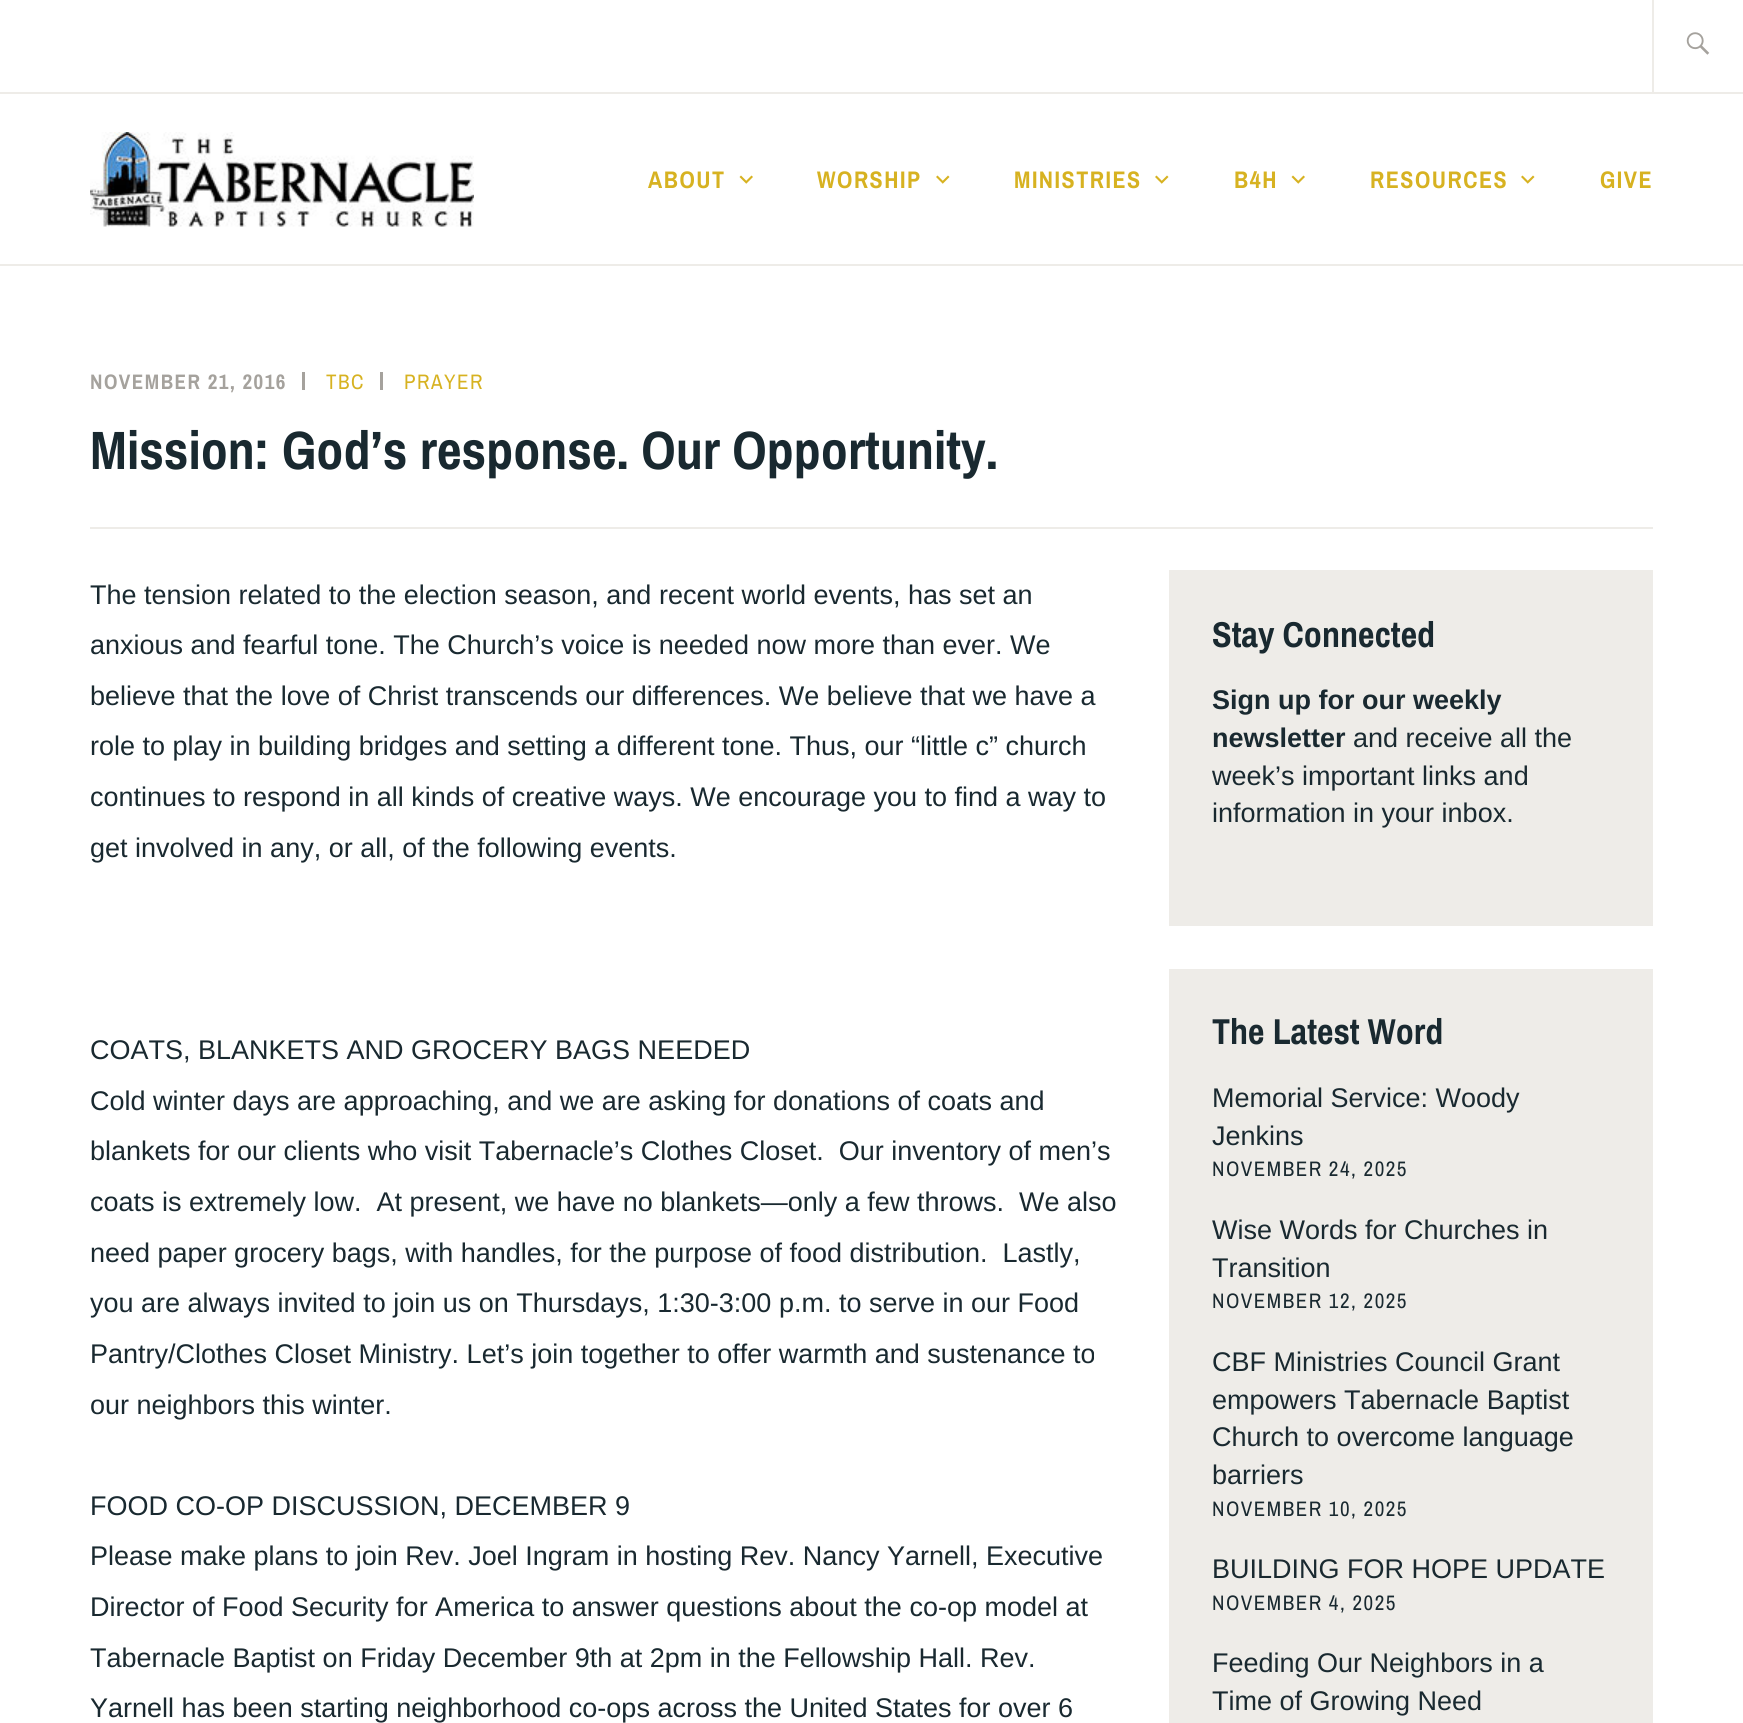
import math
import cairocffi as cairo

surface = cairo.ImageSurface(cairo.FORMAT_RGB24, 1743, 1723)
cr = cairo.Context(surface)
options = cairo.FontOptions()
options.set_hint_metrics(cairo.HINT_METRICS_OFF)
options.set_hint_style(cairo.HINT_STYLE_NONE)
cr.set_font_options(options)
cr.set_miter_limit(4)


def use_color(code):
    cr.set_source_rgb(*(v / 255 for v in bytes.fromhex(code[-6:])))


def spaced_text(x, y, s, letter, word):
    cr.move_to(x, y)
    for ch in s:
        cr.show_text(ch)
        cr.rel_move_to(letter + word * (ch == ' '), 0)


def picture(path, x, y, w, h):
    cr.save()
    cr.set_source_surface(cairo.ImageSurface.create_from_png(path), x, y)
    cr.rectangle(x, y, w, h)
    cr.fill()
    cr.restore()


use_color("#ffffff")
cr.paint()
use_color("#eeece8")
cr.rectangle(0, 264, 1743, 2)
cr.fill()
cr.rectangle(0, 92, 1743, 2)
cr.fill()
cr.rectangle(1652, 0, 2, 92)
cr.fill()
picture("img1.png", 1686, 32, 24, 23)
picture("img2.png", 90, 132, 384, 95)
cr.select_font_face("Archivo Narrow", cairo.FONT_SLANT_NORMAL, cairo.FONT_WEIGHT_BOLD)
cr.set_font_size(24)
use_color("#d7b221")
spaced_text(648, 188, "ABOUT", 1.5, 0)
picture("img3.png", 739, 175, 14, 9)
spaced_text(817, 188, "WORSHIP", 1.5, 0)
picture("img4.png", 936, 175, 14, 9)
spaced_text(1014, 188, "MINISTRIES", 1.5, 0)
picture("img4.png", 1155, 175, 14, 9)
spaced_text(1234, 188, "B4H", 1.5, 0)
picture("img3.png", 1291, 175, 14, 9)
spaced_text(1370, 188, "RESOURCES", 1.5, 0)
picture("img4.png", 1521, 175, 14, 9)
spaced_text(1600, 188, "GIVE", 1.5, 0)
cr.set_font_size(21)
use_color("#a5a29d")
spaced_text(90, 389, "NOVEMBER 21, 2016", 1.5, 0)
cr.rectangle(302, 372, 3, 18)
cr.fill()
cr.select_font_face("Archivo Narrow")
use_color("#d7b221")
spaced_text(326, 389, "TBC", 1.5, 0)
use_color("#a5a29d")
cr.rectangle(380, 372, 3, 18)
cr.fill()
use_color("#d7b221")
spaced_text(404, 389, "PRAYER", 1.5, 0)
use_color("#eeece8")
cr.rectangle(90, 527, 1563, 2)
cr.fill()
cr.select_font_face("Archivo Narrow", cairo.FONT_SLANT_NORMAL, cairo.FONT_WEIGHT_BOLD)
cr.set_font_size(54)
use_color("#192930")
cr.move_to(90, 469)
cr.show_text("Mission: God’s response. Our Opportunity.")
cr.select_font_face("Liberation Sans")
cr.set_font_size(27)
cr.move_to(90, 604)
cr.show_text("The tension related to the election season, and recent world events, has set an")
cr.move_to(90, 654)
cr.show_text("anxious and fearful tone. The Church’s voice is needed now more than ever. We")
cr.move_to(90, 705)
cr.show_text("believe that the love of Christ transcends our differences. We believe that we have a")
cr.move_to(90, 755)
cr.show_text("role to play in building bridges and setting a different tone. Thus, our “little c” church")
cr.move_to(90, 806)
cr.show_text("continues to respond in all kinds of creative ways. We encourage you to find a way to")
cr.move_to(90, 857)
cr.show_text("get involved in any, or all, of the following events.")
cr.move_to(90, 1059)
cr.show_text("COATS, BLANKETS AND GROCERY BAGS NEEDED")
cr.move_to(90, 1110)
cr.show_text("Cold winter days are approaching, and we are asking for donations of coats and")
cr.move_to(90, 1160)
cr.show_text("blankets for our clients who visit Tabernacle’s Clothes Closet.  Our inventory of men’s")
cr.move_to(90, 1211)
cr.show_text("coats is extremely low.  At present, we have no blankets—only a few throws.  We also")
cr.move_to(90, 1262)
cr.show_text("need paper grocery bags, with handles, for the purpose of food distribution.  Lastly,")
cr.move_to(90, 1312)
cr.show_text("you are always invited to join us on Thursdays, 1:30-3:00 p.m. to serve in our Food")
cr.move_to(90, 1363)
cr.show_text("Pantry/Clothes Closet Ministry. Let’s join together to offer warmth and sustenance to")
cr.move_to(90, 1414)
cr.show_text("our neighbors this winter.")
cr.move_to(90, 1515)
cr.show_text("FOOD CO-OP DISCUSSION, DECEMBER 9")
cr.move_to(90, 1565)
cr.show_text("Please make plans to join Rev. Joel Ingram in hosting Rev. Nancy Yarnell, Executive")
cr.move_to(90, 1616)
cr.show_text("Director of Food Security for America to answer questions about the co-op model at")
cr.move_to(90, 1667)
cr.show_text("Tabernacle Baptist on Friday December 9th at 2pm in the Fellowship Hall. Rev.")
cr.move_to(90, 1717)
cr.show_text("Yarnell has been starting neighborhood co-ops across the United States for over 6")
use_color("#eeece8")
cr.rectangle(1169, 570, 484, 356)
cr.fill()
cr.select_font_face("Archivo Narrow", cairo.FONT_SLANT_NORMAL, cairo.FONT_WEIGHT_BOLD)
cr.set_font_size(36)
use_color("#192930")
cr.move_to(1212, 647)
cr.show_text("Stay Connected")
cr.select_font_face("Liberation Sans", cairo.FONT_SLANT_NORMAL, cairo.FONT_WEIGHT_BOLD)
cr.set_font_size(27)
cr.move_to(1212, 709)
cr.show_text("Sign up for our weekly")
cr.move_to(1212, 747)
cr.show_text("newsletter")
cr.select_font_face("Liberation Sans")
cr.move_to(1353, 747)
cr.show_text("and receive all the")
cr.move_to(1212, 785)
cr.show_text("week’s important links and")
cr.move_to(1212, 822)
cr.show_text("information in your inbox.")
use_color("#eeece8")
cr.rectangle(1169, 969, 484, 754)
cr.fill()
cr.select_font_face("Archivo Narrow", cairo.FONT_SLANT_NORMAL, cairo.FONT_WEIGHT_BOLD)
cr.set_font_size(36)
use_color("#192930")
cr.move_to(1212, 1044)
cr.show_text("The Latest Word")
cr.select_font_face("Liberation Sans")
cr.set_font_size(27)
cr.move_to(1212, 1107)
cr.show_text("Memorial Service: Woody")
cr.move_to(1212, 1145)
cr.show_text("Jenkins")
cr.select_font_face("Archivo Narrow")
cr.set_font_size(21)
spaced_text(1212, 1176, "NOVEMBER 24, 2025", 1.5, 0)
cr.select_font_face("Liberation Sans")
cr.set_font_size(27)
cr.move_to(1212, 1239)
cr.show_text("Wise Words for Churches in")
cr.move_to(1212, 1277)
cr.show_text("Transition")
cr.select_font_face("Archivo Narrow")
cr.set_font_size(21)
spaced_text(1212, 1308, "NOVEMBER 12, 2025", 1.5, 0)
cr.select_font_face("Liberation Sans")
cr.set_font_size(27)
cr.move_to(1212, 1371)
cr.show_text("CBF Ministries Council Grant")
cr.move_to(1212, 1409)
cr.show_text("empowers Tabernacle Baptist")
cr.move_to(1212, 1446)
cr.show_text("Church to overcome language")
cr.move_to(1212, 1484)
cr.show_text("barriers")
cr.select_font_face("Archivo Narrow")
cr.set_font_size(21)
spaced_text(1212, 1516, "NOVEMBER 10, 2025", 1.5, 0)
cr.select_font_face("Liberation Sans")
cr.set_font_size(27)
cr.move_to(1212, 1578)
cr.show_text("BUILDING FOR HOPE UPDATE")
cr.select_font_face("Archivo Narrow")
cr.set_font_size(21)
spaced_text(1212, 1610, "NOVEMBER 4, 2025", 1.5, 0)
cr.select_font_face("Liberation Sans")
cr.set_font_size(27)
cr.move_to(1212, 1672)
cr.show_text("Feeding Our Neighbors in a")
cr.move_to(1212, 1710)
cr.show_text("Time of Growing Need")
surface.write_to_png("result.png")
